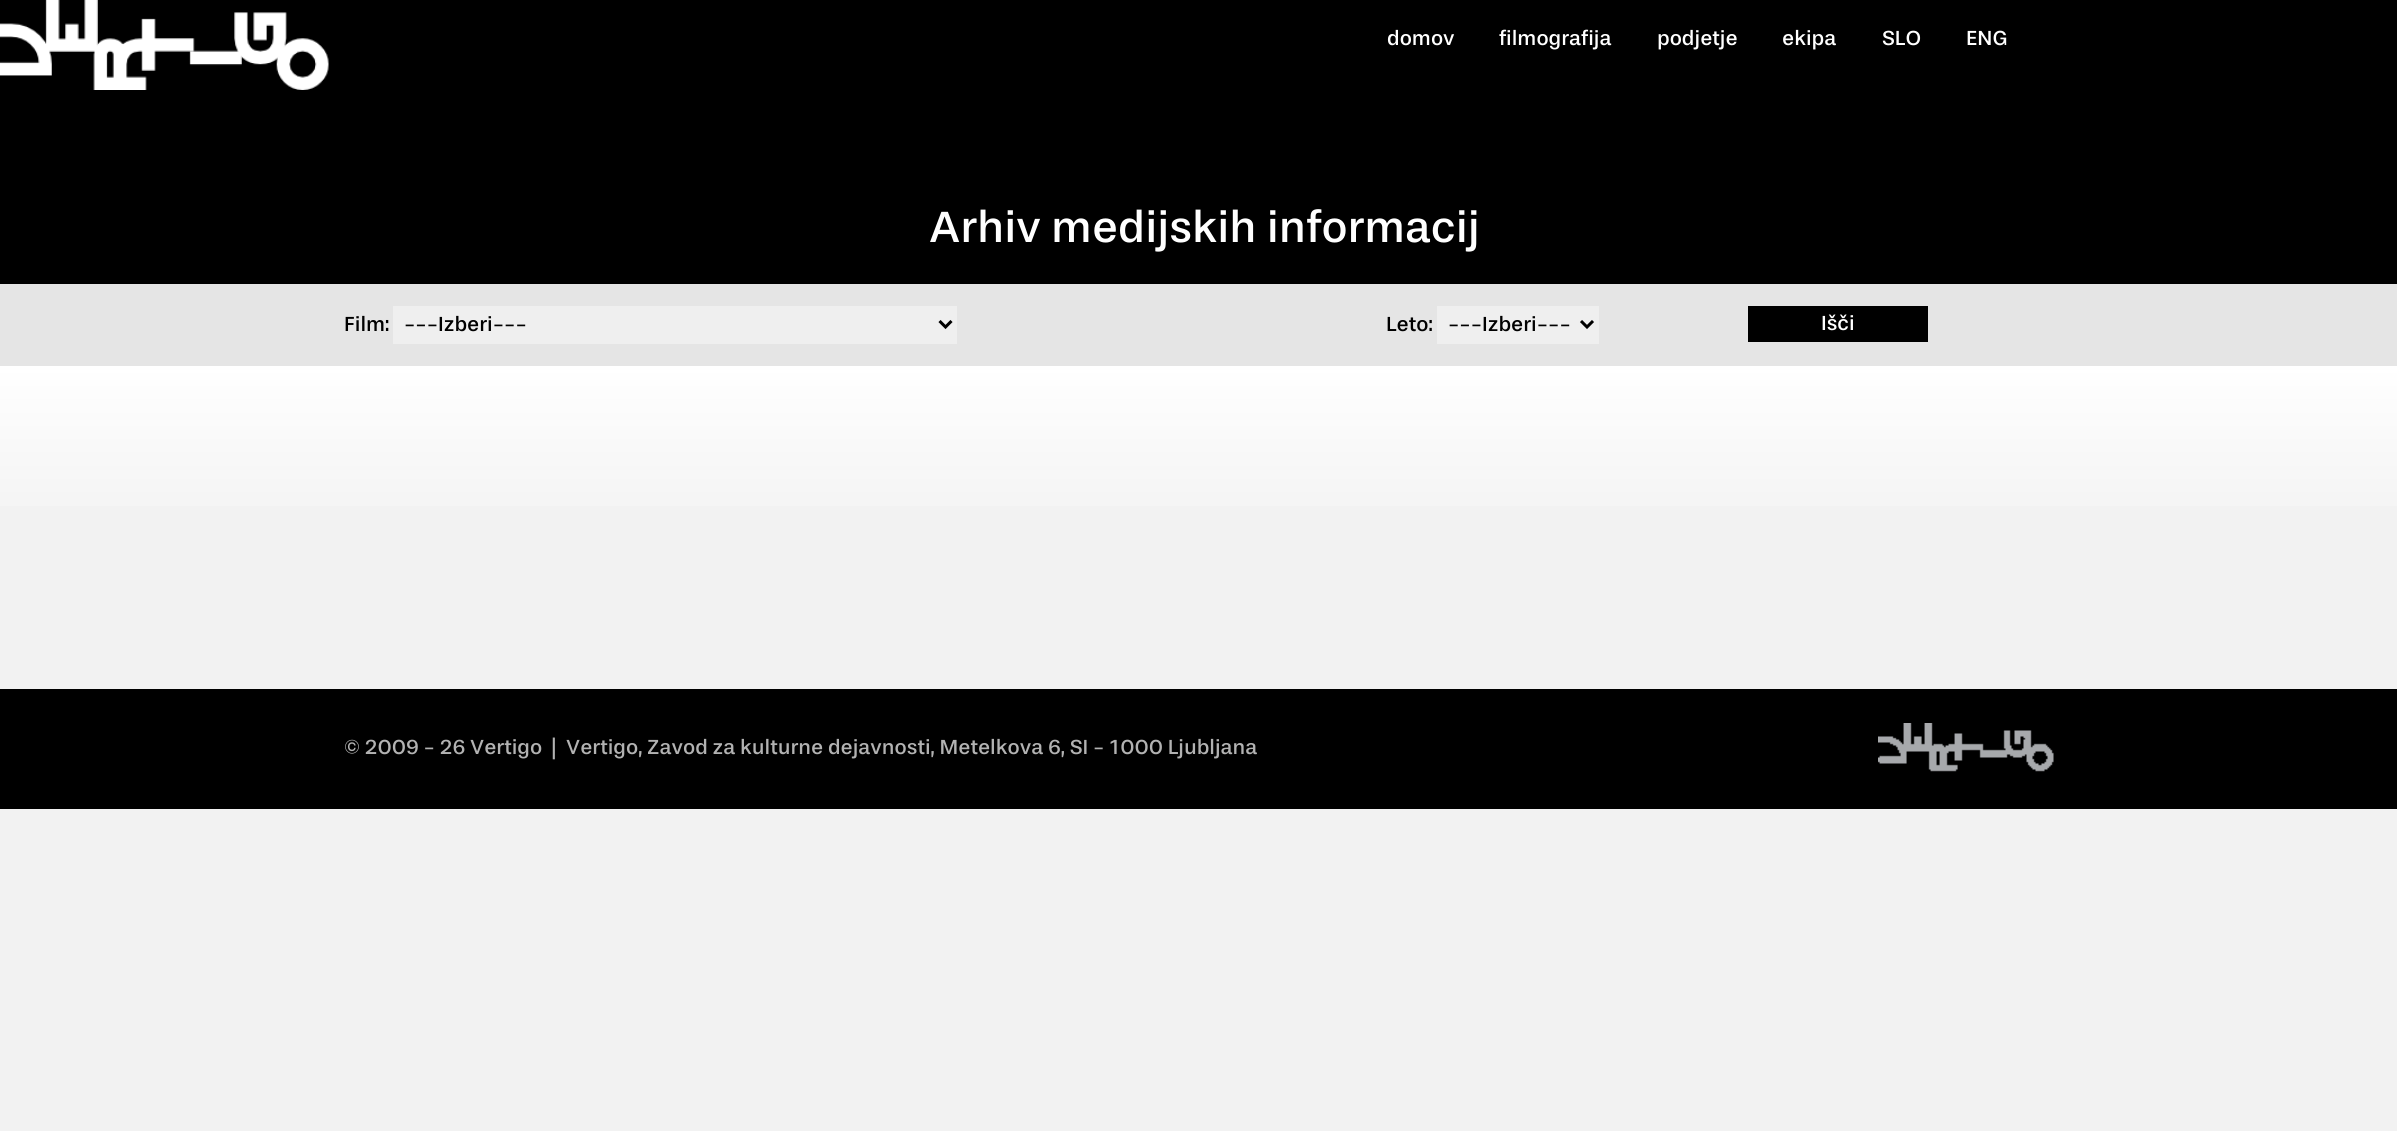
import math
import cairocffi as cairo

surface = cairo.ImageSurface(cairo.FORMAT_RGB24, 2397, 1131)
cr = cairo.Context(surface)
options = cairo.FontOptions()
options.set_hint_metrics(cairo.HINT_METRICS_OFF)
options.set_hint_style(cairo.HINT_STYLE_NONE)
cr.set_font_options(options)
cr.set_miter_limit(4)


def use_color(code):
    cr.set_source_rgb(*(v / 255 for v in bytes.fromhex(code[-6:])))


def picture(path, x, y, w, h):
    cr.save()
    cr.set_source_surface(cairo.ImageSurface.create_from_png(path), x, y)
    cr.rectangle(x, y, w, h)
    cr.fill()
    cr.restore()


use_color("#f2f2f2")
cr.paint()
use_color("#000000")
cr.rectangle(0, 0, 2397, 284)
cr.fill()
picture("img1.png", 0, 0, 329, 90)
cr.select_font_face("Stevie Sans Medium")
cr.set_font_size(21)
use_color("#ffffff")
cr.move_to(1387, 45)
cr.show_text("domov")
cr.move_to(1499, 45)
cr.show_text("filmografija")
cr.move_to(1657, 45)
cr.show_text("podjetje")
cr.move_to(1782, 45)
cr.show_text("ekipa")
cr.move_to(1882, 45)
cr.show_text("SLO")
cr.move_to(1966, 45)
cr.show_text("ENG")
cr.set_font_size(45)
cr.move_to(929, 242)
cr.show_text("Arhiv medijskih informacij")
use_color("#e5e5e5")
cr.rectangle(0, 284, 2397, 82)
cr.fill()
cr.set_font_size(21)
use_color("#000000")
cr.move_to(344, 331)
cr.show_text("Film:")
use_color("#efefef")
cr.rectangle(393, 306, 564, 38)
cr.fill()
cr.new_path()
cr.move_to(939.5, 321)
cr.line_to(945.5, 327)
cr.line_to(951.5, 321)
use_color("#000000")
cr.set_line_width(3)
cr.stroke()
cr.move_to(404, 331)
cr.show_text("---Izberi---")
cr.move_to(1386, 331)
cr.show_text("Leto:")
use_color("#efefef")
cr.rectangle(1437, 306, 162, 38)
cr.fill()
cr.new_path()
cr.move_to(1581, 321)
cr.line_to(1587, 327)
cr.line_to(1593, 321)
use_color("#000000")
cr.stroke()
cr.move_to(1448, 331)
cr.show_text("---Izberi---")
cr.rectangle(1748, 306, 180, 36)
cr.fill()
use_color("#ffffff")
cr.move_to(1821, 330)
cr.show_text("Išči")
gradient = cairo.LinearGradient(1199, 366, 1199, 539)
gradient.add_color_stop_rgba(0, 1, 1, 1, 1)
gradient.add_color_stop_rgba(1, 0.949, 0.949, 0.949, 1)
cr.set_source(gradient)
cr.rectangle(0, 366, 2397, 140)
cr.fill()
use_color("#000000")
cr.rectangle(0, 689, 2397, 120)
cr.fill()
use_color("#b2b2b2")
cr.move_to(344, 754)
cr.show_text("© 2009 - 26 Vertigo")
cr.move_to(551, 754)
cr.show_text("|  Vertigo, Zavod za kulturne dejavnosti, Metelkova 6, SI - 1000 Ljubljana")
picture("img2.png", 1878, 723, 176, 49)
surface.write_to_png("result.png")
